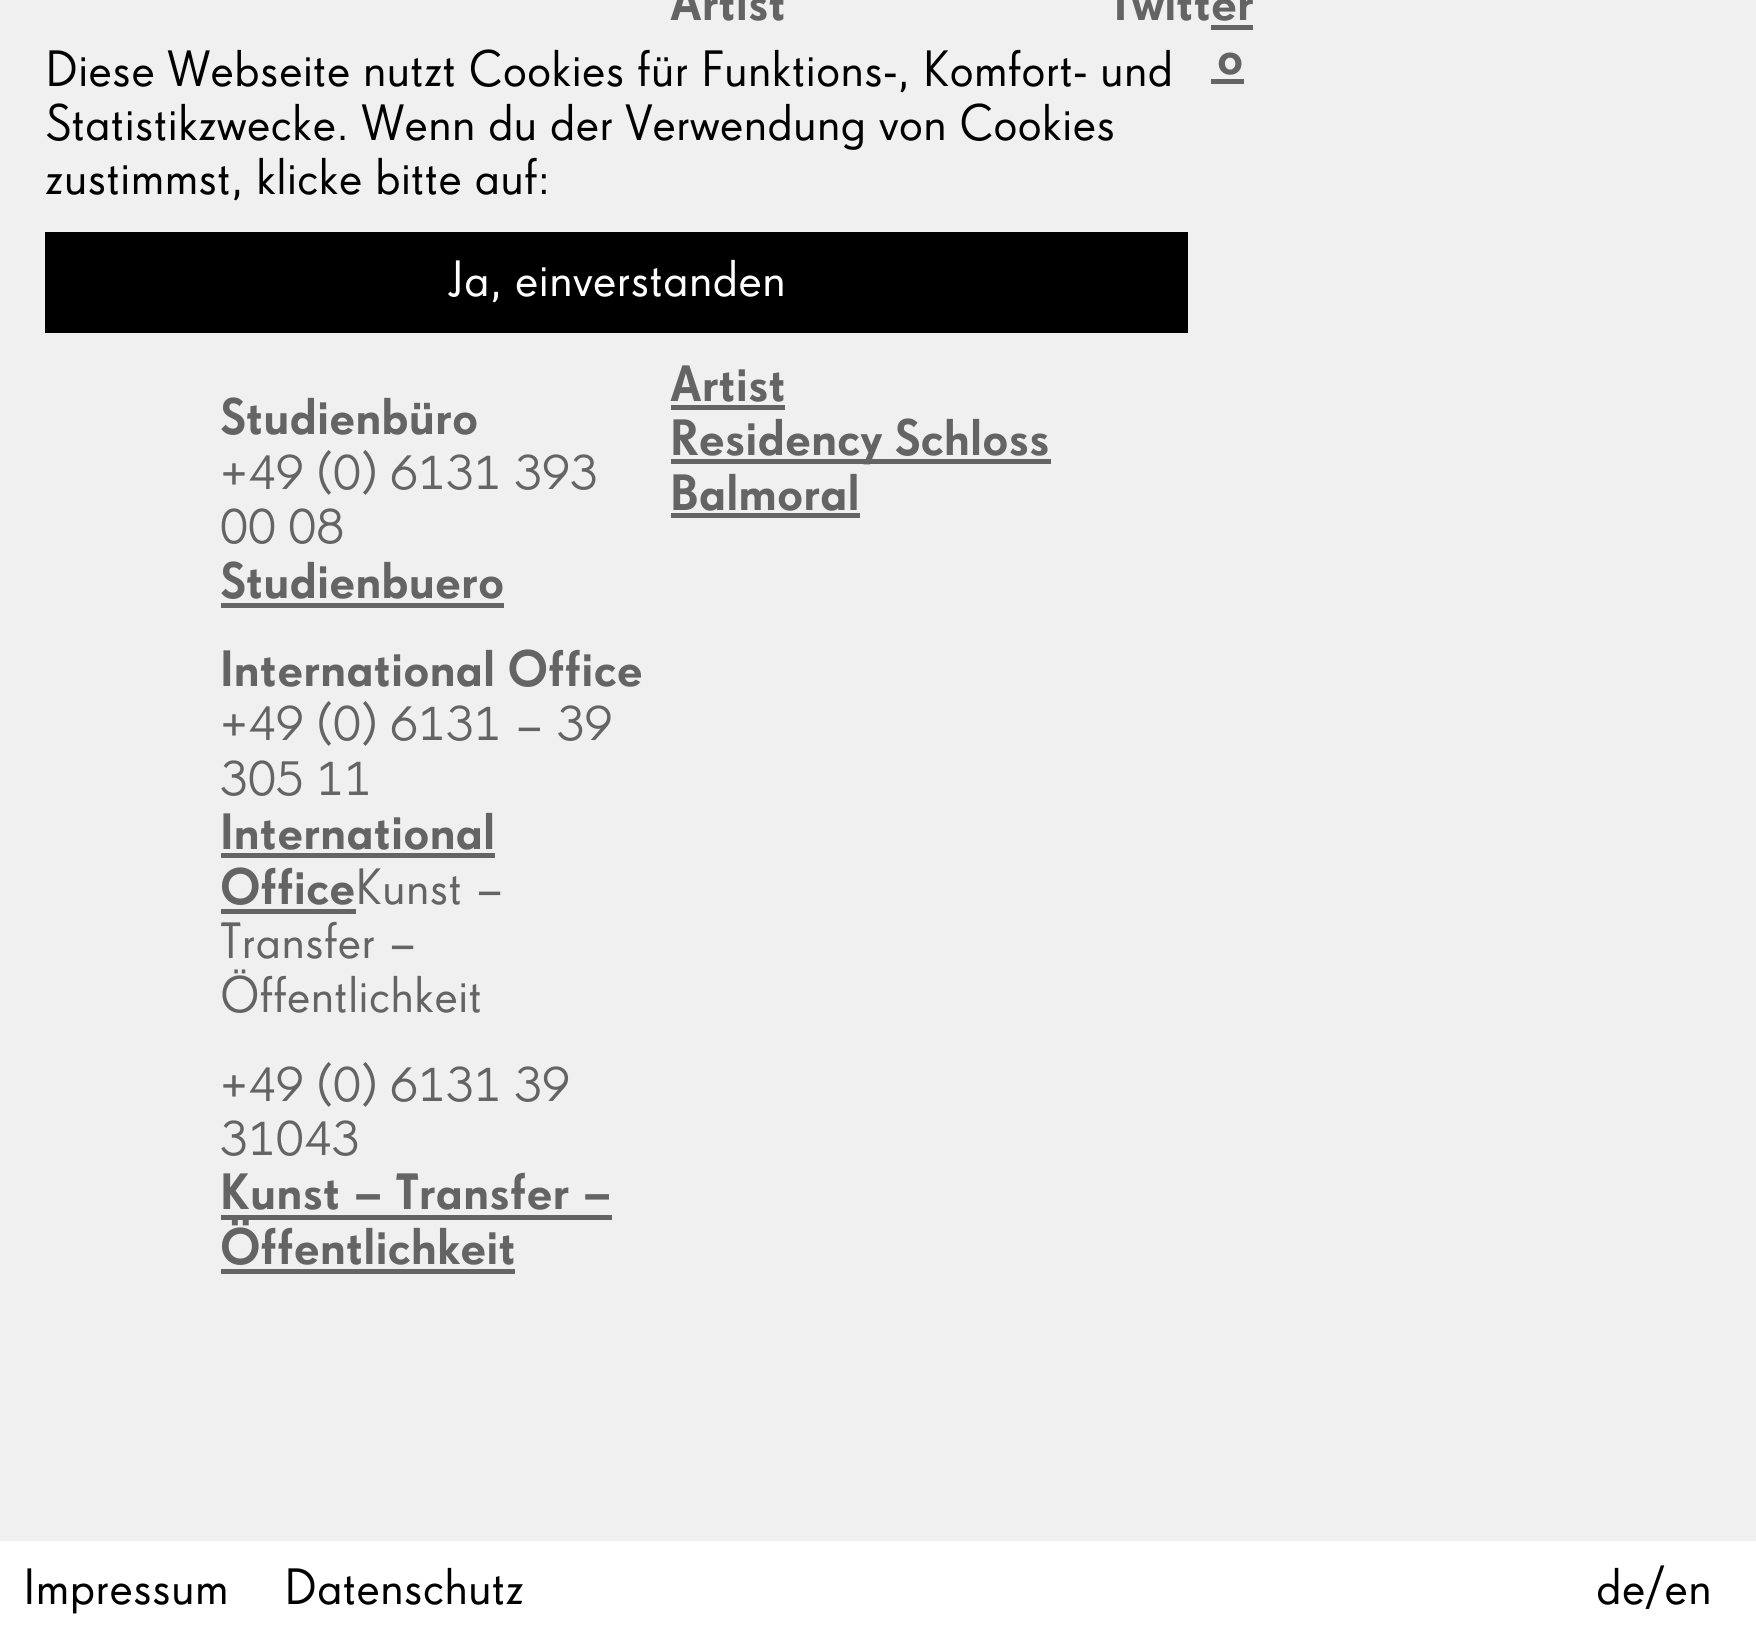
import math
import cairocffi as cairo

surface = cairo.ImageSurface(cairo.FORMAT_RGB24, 1756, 1640)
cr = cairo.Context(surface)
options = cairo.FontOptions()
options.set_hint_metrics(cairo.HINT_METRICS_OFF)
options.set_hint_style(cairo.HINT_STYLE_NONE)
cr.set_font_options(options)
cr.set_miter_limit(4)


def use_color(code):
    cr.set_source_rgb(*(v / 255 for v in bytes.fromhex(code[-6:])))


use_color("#f0f0f0")
cr.paint()
cr.select_font_face("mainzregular")
cr.set_font_size(49.5)
use_color("#646464")
cr.move_to(670, 20)
cr.show_text("Artist")
cr.move_to(670, 401)
cr.show_text("Artist")
cr.rectangle(671, 405, 114, 5)
cr.fill()
cr.rectangle(671, 459, 380, 5)
cr.fill()
cr.move_to(670, 455)
cr.show_text("Residency Schloss")
cr.move_to(670, 510)
cr.show_text("Balmoral")
cr.rectangle(671, 513, 189, 5)
cr.fill()
cr.move_to(1109, 20)
cr.show_text("Twitter")
cr.rectangle(1211, 25, 42, 5)
cr.fill()
cr.move_to(1217, 74)
cr.show_text("o")
cr.rectangle(1211, 79, 33, 5)
cr.fill()
cr.move_to(220, 434)
cr.show_text("Studienbüro")
cr.select_font_face("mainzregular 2")
cr.move_to(220, 489)
cr.show_text("+49 (0) 6131 393")
cr.move_to(220, 543)
cr.show_text("00 08")
cr.select_font_face("mainzregular")
cr.move_to(220, 598)
cr.show_text("Studienbuero")
cr.rectangle(221, 603, 283, 5)
cr.fill()
cr.move_to(220, 686)
cr.show_text("International Office")
cr.select_font_face("mainzregular 2")
cr.move_to(220, 740)
cr.show_text("+49 (0) 6131 – 39")
cr.move_to(220, 795)
cr.show_text("305 11")
cr.select_font_face("mainzregular")
cr.move_to(220, 849)
cr.show_text("International")
cr.rectangle(221, 853, 274, 5)
cr.fill()
cr.move_to(220, 904)
cr.show_text("Office")
cr.rectangle(221, 909, 135, 5)
cr.fill()
cr.select_font_face("mainzregular 2")
cr.move_to(355, 904)
cr.show_text("Kunst –")
cr.move_to(220, 958)
cr.show_text("Transfer –")
cr.move_to(220, 1012)
cr.show_text("Öffentlichkeit")
cr.move_to(220, 1101)
cr.show_text("+49 (0) 6131 39")
cr.move_to(220, 1155)
cr.show_text("31043")
cr.select_font_face("mainzregular")
cr.move_to(220, 1209)
cr.show_text("Kunst – Transfer –")
cr.rectangle(221, 1215, 391, 5)
cr.fill()
cr.move_to(220, 1264)
cr.show_text("Öffentlichkeit")
cr.rectangle(221, 1269, 294, 5)
cr.fill()
use_color("#ffffff")
cr.rectangle(0, 1541, 1756, 99)
cr.fill()
cr.select_font_face("mainzregular 2")
use_color("#000000")
cr.move_to(23, 1604)
cr.show_text("Impressum")
cr.move_to(284, 1604)
cr.show_text("Datenschutz")
cr.move_to(1596, 1604)
cr.show_text("de/en")
cr.move_to(45, 86)
cr.show_text("Diese Webseite nutzt Cookies für Funktions-, Komfort- und")
cr.move_to(45, 140)
cr.show_text("Statistikzwecke. Wenn du der Verwendung von Cookies")
cr.move_to(45, 194)
cr.show_text("zustimmst, klicke bitte auf:")
cr.rectangle(45, 232, 1143, 101)
cr.fill()
use_color("#ffffff")
cr.move_to(448, 296)
cr.show_text("Ja, einverstanden")
surface.write_to_png("result.png")
